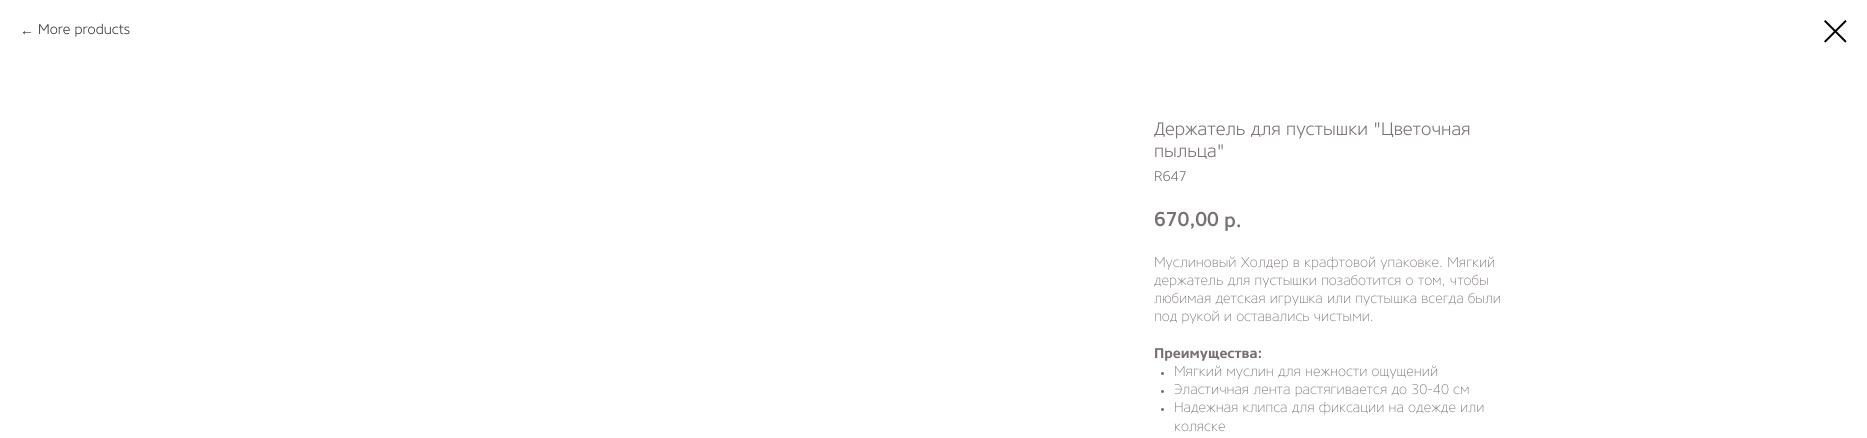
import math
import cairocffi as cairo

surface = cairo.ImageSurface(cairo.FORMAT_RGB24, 1867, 438)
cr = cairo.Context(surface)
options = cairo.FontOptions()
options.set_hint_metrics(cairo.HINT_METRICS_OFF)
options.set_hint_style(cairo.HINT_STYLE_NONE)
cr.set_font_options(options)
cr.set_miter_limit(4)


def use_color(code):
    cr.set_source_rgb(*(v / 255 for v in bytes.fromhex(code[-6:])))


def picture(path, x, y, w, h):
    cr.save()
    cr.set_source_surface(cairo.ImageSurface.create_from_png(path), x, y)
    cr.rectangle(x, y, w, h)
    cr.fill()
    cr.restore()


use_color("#ffffff")
cr.paint()
cr.select_font_face("Liberation Sans")
cr.set_font_size(14)
use_color("#333333")
cr.move_to(20, 35)
cr.show_text("←")
cr.select_font_face("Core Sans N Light")
cr.move_to(38, 34)
cr.show_text("More products")
picture("img1.png", 1824, 20, 23, 23)
cr.set_font_size(18)
use_color("#787072")
cr.move_to(1154, 135)
cr.show_text("Держатель для пустышки \"Цветочная")
cr.move_to(1154, 157)
cr.show_text("пыльца\"")
cr.set_font_size(14)
use_color("#777777")
cr.move_to(1154, 181)
cr.show_text("R647")
cr.select_font_face("Core Sans N Medium")
cr.set_font_size(20)
use_color("#787072")
cr.move_to(1154, 226)
cr.show_text("670,00")
cr.move_to(1224, 227)
cr.show_text("р.")
cr.select_font_face("Core Sans N ExtraLight")
cr.set_font_size(14)
cr.move_to(1154, 267)
cr.show_text("Муслиновый Холдер в крафтовой упаковке. Мягкий")
cr.move_to(1154, 285)
cr.show_text("держатель для пустышки позаботится о том, чтобы")
cr.move_to(1154, 303)
cr.show_text("любимая детская игрушка или пустышка всегда были")
cr.move_to(1154, 321)
cr.show_text("под рукой и оставались чистыми.")
cr.select_font_face("Core Sans N", cairo.FONT_SLANT_NORMAL, cairo.FONT_WEIGHT_BOLD)
cr.move_to(1154, 358)
cr.show_text("Преимущества:")
cr.new_path()
cr.arc(1162.5, 373.5, 1.5, 0, 2 * math.pi)
cr.fill()
cr.select_font_face("Core Sans N ExtraLight")
cr.move_to(1174, 376)
cr.show_text("Мягкий муслин для нежности ощущений")
cr.new_path()
cr.arc(1162.5, 391.5, 1.5, 0, 2 * math.pi)
cr.fill()
cr.move_to(1174, 394)
cr.show_text("Эластичная лента растягивается до 30-40 см")
cr.new_path()
cr.arc(1162.5, 409.5, 1.5, 0, 2 * math.pi)
cr.fill()
cr.move_to(1174, 412)
cr.show_text("Надежная клипса для фиксации на одежде или")
cr.move_to(1174, 431)
cr.show_text("коляске")
surface.write_to_png("result.png")
